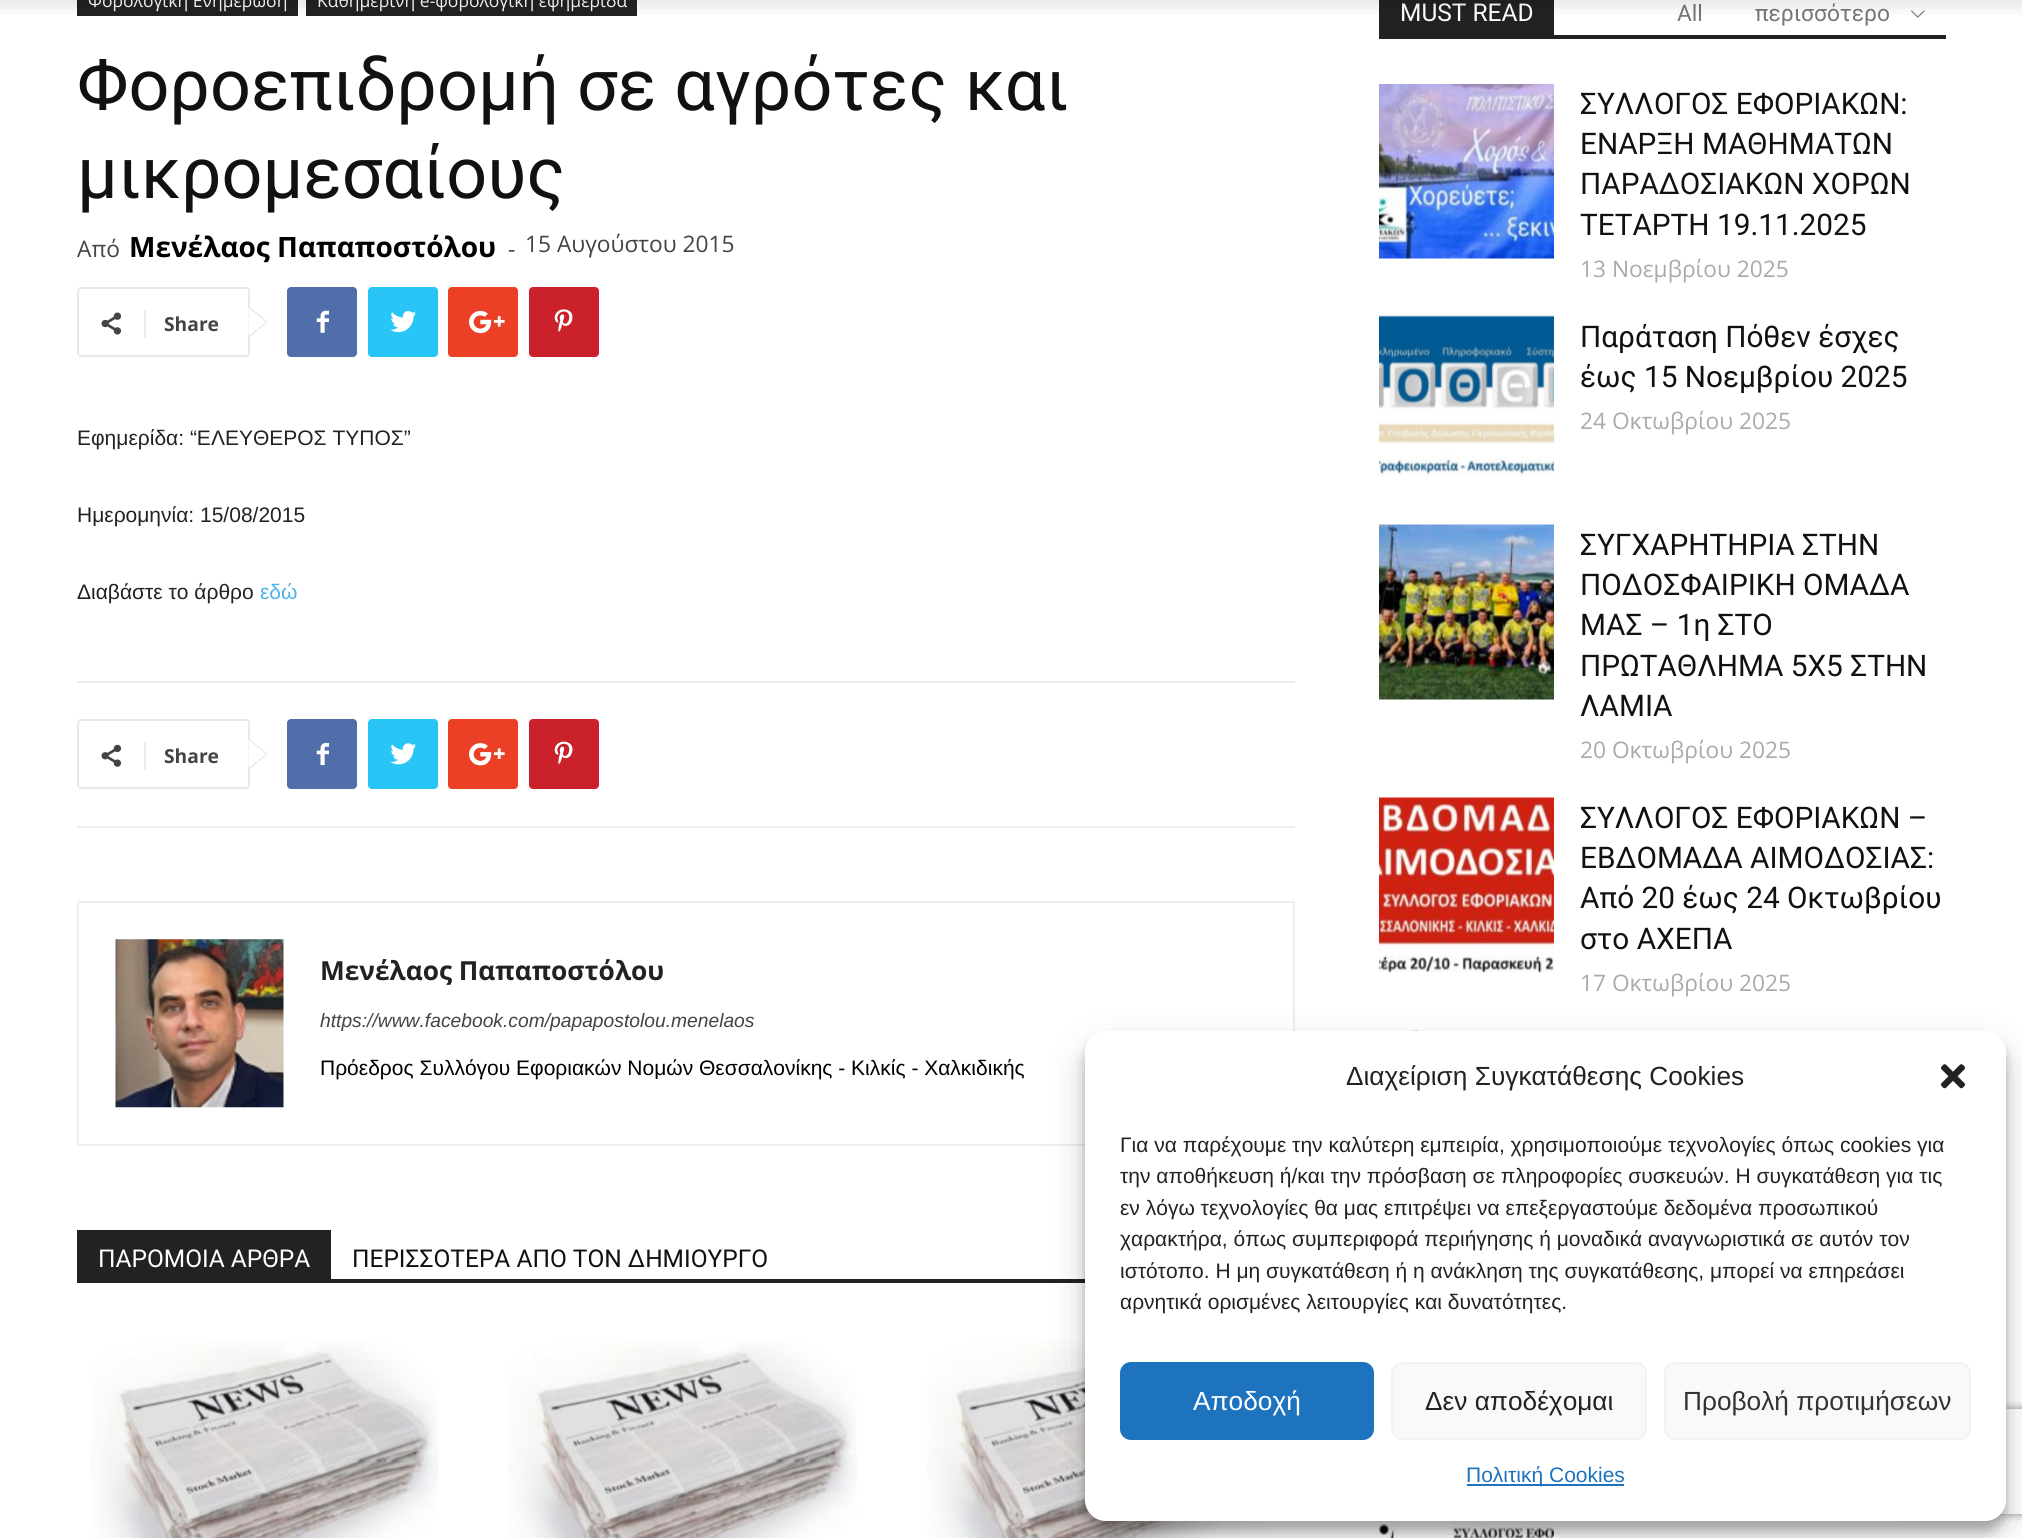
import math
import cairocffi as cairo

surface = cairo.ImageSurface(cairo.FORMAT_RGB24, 2022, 1538)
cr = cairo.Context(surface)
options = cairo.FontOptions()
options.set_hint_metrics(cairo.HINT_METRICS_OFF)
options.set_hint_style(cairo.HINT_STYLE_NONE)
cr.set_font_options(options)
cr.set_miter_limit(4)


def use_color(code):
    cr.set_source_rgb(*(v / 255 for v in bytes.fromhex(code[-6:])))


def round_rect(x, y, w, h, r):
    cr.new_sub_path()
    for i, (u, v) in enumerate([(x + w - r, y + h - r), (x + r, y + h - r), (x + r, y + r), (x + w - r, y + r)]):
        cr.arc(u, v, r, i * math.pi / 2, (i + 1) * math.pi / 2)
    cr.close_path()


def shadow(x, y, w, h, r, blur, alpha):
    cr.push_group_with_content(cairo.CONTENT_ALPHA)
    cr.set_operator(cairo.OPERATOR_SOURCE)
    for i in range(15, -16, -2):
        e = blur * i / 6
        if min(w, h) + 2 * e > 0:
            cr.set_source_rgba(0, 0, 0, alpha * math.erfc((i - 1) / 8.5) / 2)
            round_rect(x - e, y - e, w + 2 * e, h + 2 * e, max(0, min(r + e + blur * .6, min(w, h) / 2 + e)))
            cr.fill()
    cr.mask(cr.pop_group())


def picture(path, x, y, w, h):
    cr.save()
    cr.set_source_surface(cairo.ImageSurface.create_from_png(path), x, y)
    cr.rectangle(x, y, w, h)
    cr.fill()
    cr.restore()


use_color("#ffffff")
cr.paint()
use_color("#222222")
cr.rectangle(77, 0, 221, 16)
cr.fill()
cr.select_font_face("Open Sans")
cr.set_font_size(17.5)
use_color("#ffffff")
cr.move_to(88, 7)
cr.show_text("Φορολογική Ενημέρωση")
use_color("#222222")
cr.rectangle(306, 0, 331, 16)
cr.fill()
use_color("#ffffff")
cr.move_to(317, 7)
cr.show_text("Καθημερινή e-φορολογική εφημερίδα")
use_color("#222222")
cr.rectangle(1379, 0, 175, 35)
cr.fill()
cr.select_font_face("Roboto")
cr.set_font_size(24.5)
use_color("#ffffff")
cr.move_to(1400, 21)
cr.show_text("MUST READ")
cr.set_font_size(22.75)
use_color("#777777")
cr.move_to(1677, 21)
cr.show_text("All")
cr.move_to(1755, 21)
cr.show_text("περισσότερο")
picture("img16.png", 1911, 10, 14, 8)
picture("img1.png", 0, 0, 2022, 15)
cr.set_font_size(71.75)
use_color("#111111")
cr.move_to(77, 110)
cr.show_text("Φοροεπιδρομή σε αγρότες και")
cr.move_to(77, 198)
cr.show_text("μικρομεσαίους")
cr.select_font_face("Open Sans")
cr.set_font_size(22.75)
use_color("#444444")
cr.move_to(77, 257)
cr.show_text("Από")
cr.select_font_face("Open Sans", cairo.FONT_SLANT_NORMAL, cairo.FONT_WEIGHT_BOLD)
cr.set_font_size(28)
use_color("#000000")
cr.move_to(129, 257)
cr.show_text("Μενέλαος Παπαποστόλου")
cr.select_font_face("Open Sans")
cr.set_font_size(22.75)
use_color("#444444")
cr.move_to(508, 257)
cr.show_text("-")
cr.move_to(525, 252)
cr.show_text("15 Αυγούστου 2015")
round_rect(78, 288, 171, 68, 3)
use_color("#e9e9e9")
cr.stroke()
cr.new_path()
cr.move_to(248.5, 338)
cr.line_to(248.5, 306)
cr.line_to(268, 322)
cr.close_path()
cr.fill()
picture("img2.png", 101, 312, 21, 23)
use_color("#ebebeb")
cr.rectangle(144, 310, 2, 28)
cr.fill()
cr.select_font_face("Open Sans", cairo.FONT_SLANT_NORMAL, cairo.FONT_WEIGHT_BOLD)
cr.set_font_size(19.25)
use_color("#444444")
cr.move_to(164, 331)
cr.show_text("Share")
use_color("#ffffff")
cr.new_path()
cr.move_to(248.5, 336)
cr.line_to(248.5, 308)
cr.line_to(266, 322)
cr.close_path()
cr.fill()
use_color("#516eab")
round_rect(287, 287, 70, 70, 4)
cr.fill()
picture("img3.png", 316, 310, 13, 23)
use_color("#29c5f6")
round_rect(368, 287, 70, 70, 4)
cr.fill()
picture("img4.png", 390, 311, 26, 22)
use_color("#eb4026")
round_rect(448, 287, 70, 70, 4)
cr.fill()
picture("img5.png", 469, 310, 36, 24)
use_color("#ca212a")
round_rect(529, 287, 70, 70, 4)
cr.fill()
picture("img6.png", 554, 309, 19, 23)
cr.select_font_face("Liberation Sans")
cr.set_font_size(21)
use_color("#222222")
cr.move_to(77, 445)
cr.show_text("Εφημερίδα: “ΕΛΕΥΘΕΡΟΣ ΤΥΠΟΣ”")
cr.move_to(77, 522)
cr.show_text("Ημερομηνία: 15/08/2015")
cr.move_to(77, 599)
cr.show_text("Διαβάστε το άρθρο")
use_color("#4db2ec")
cr.move_to(260, 599)
cr.show_text("εδώ")
use_color("#ededed")
cr.rectangle(77, 681, 1218, 2)
cr.fill()
cr.rectangle(77, 826, 1218, 2)
cr.fill()
round_rect(78, 720, 171, 68, 3)
use_color("#e9e9e9")
cr.stroke()
cr.new_path()
cr.move_to(248.5, 770)
cr.line_to(248.5, 738.5)
cr.line_to(268, 754)
cr.close_path()
cr.fill()
picture("img7.png", 101, 744, 21, 23)
use_color("#ebebeb")
cr.rectangle(144, 742, 2, 28)
cr.fill()
cr.select_font_face("Open Sans", cairo.FONT_SLANT_NORMAL, cairo.FONT_WEIGHT_BOLD)
cr.set_font_size(19.25)
use_color("#444444")
cr.move_to(164, 763)
cr.show_text("Share")
use_color("#ffffff")
cr.new_path()
cr.move_to(248.5, 768)
cr.line_to(248.5, 740)
cr.line_to(266, 754)
cr.close_path()
cr.fill()
use_color("#516eab")
round_rect(287, 719, 70, 70, 4)
cr.fill()
picture("img8.png", 316, 743, 13, 23)
use_color("#29c5f6")
round_rect(368, 719, 70, 70, 4)
cr.fill()
picture("img9.png", 390, 743, 26, 22)
use_color("#eb4026")
round_rect(448, 719, 70, 70, 4)
cr.fill()
picture("img10.png", 469, 743, 36, 23)
use_color("#ca212a")
round_rect(529, 719, 70, 70, 4)
cr.fill()
picture("img11.png", 554, 741, 19, 24)
cr.rectangle(78, 902, 1216, 243)
use_color("#ededed")
cr.stroke()
picture("img12.png", 115, 939, 169, 169)
cr.set_font_size(26.25)
use_color("#222222")
cr.move_to(320, 980)
cr.show_text("Μενέλαος Παπαποστόλου")
cr.select_font_face("Liberation Sans", cairo.FONT_SLANT_ITALIC)
cr.set_font_size(19.25)
use_color("#444444")
cr.move_to(320, 1027)
cr.show_text("https://www.facebook.com/papapostolou.menelaos")
cr.select_font_face("Liberation Sans")
cr.set_font_size(21)
use_color("#000000")
cr.move_to(320, 1075)
cr.show_text("Πρόεδρος Συλλόγου Εφοριακών Νομών Θεσσαλονίκης - Κιλκίς - Χαλκιδικής")
use_color("#222222")
cr.rectangle(77, 1279, 1008, 4)
cr.fill()
cr.rectangle(77, 1230, 254, 49)
cr.fill()
cr.select_font_face("Roboto")
cr.set_font_size(24.5)
use_color("#ffffff")
cr.move_to(98, 1267)
cr.show_text("ΠΑΡΟΜΟΙΑ ΑΡΘΡΑ")
use_color("#111111")
cr.move_to(352, 1267)
cr.show_text("ΠΕΡΙΣΣΟΤΕΡΑ ΑΠΟ ΤΟΝ ΔΗΜΙΟΥΡΓΟ")
picture("img13.png", 90, 1341, 349, 197)
picture("img14.png", 508, 1341, 349, 197)
picture("img15.png", 927, 1341, 348, 197)
use_color("#222222")
cr.rectangle(1379, 35, 567, 4)
cr.fill()
picture("img17.png", 1379, 84, 175, 175)
cr.set_font_size(29.75)
use_color("#111111")
cr.move_to(1580, 114)
cr.show_text("ΣΥΛΛΟΓΟΣ ΕΦΟΡΙΑΚΩΝ:")
cr.move_to(1580, 154)
cr.show_text("ΕΝΑΡΞΗ ΜΑΘΗΜΑΤΩΝ")
cr.move_to(1580, 194)
cr.show_text("ΠΑΡΑΔΟΣΙΑΚΩΝ ΧΟΡΩΝ")
cr.move_to(1580, 235)
cr.show_text("ΤΕΤΑΡΤΗ 19.11.2025")
cr.select_font_face("Open Sans")
cr.set_font_size(22.75)
use_color("#aaaaaa")
cr.move_to(1580, 277)
cr.show_text("13 Νοεμβρίου 2025")
picture("img18.png", 1379, 315, 175, 161)
cr.select_font_face("Roboto")
cr.set_font_size(29.75)
use_color("#111111")
cr.move_to(1580, 347)
cr.show_text("Παράταση Πόθεν έσχες")
cr.move_to(1580, 387)
cr.show_text("έως 15 Νοεμβρίου 2025")
cr.select_font_face("Open Sans")
cr.set_font_size(22.75)
use_color("#aaaaaa")
cr.move_to(1580, 429)
cr.show_text("24 Οκτωβρίου 2025")
picture("img19.png", 1379, 524, 175, 176)
cr.select_font_face("Roboto")
cr.set_font_size(29.75)
use_color("#111111")
cr.move_to(1580, 555)
cr.show_text("ΣΥΓΧΑΡΗΤΗΡΙΑ ΣΤΗΝ")
cr.move_to(1580, 595)
cr.show_text("ΠΟΔΟΣΦΑΙΡΙΚΗ ΟΜΑΔΑ")
cr.move_to(1580, 635)
cr.show_text("ΜΑΣ – 1η ΣΤΟ")
cr.move_to(1580, 676)
cr.show_text("ΠΡΩΤΑΘΛΗΜΑ 5Χ5 ΣΤΗΝ")
cr.move_to(1580, 716)
cr.show_text("ΛΑΜΙΑ")
cr.select_font_face("Open Sans")
cr.set_font_size(22.75)
use_color("#aaaaaa")
cr.move_to(1580, 758)
cr.show_text("20 Οκτωβρίου 2025")
picture("img20.png", 1379, 797, 175, 176)
cr.select_font_face("Roboto")
cr.set_font_size(29.75)
use_color("#111111")
cr.move_to(1580, 828)
cr.show_text("ΣΥΛΛΟΓΟΣ ΕΦΟΡΙΑΚΩΝ –")
cr.move_to(1580, 868)
cr.show_text("ΕΒΔΟΜΑΔΑ ΑΙΜΟΔΟΣΙΑΣ:")
cr.move_to(1580, 908)
cr.show_text("Από 20 έως 24 Οκτωβρίου")
cr.move_to(1580, 949)
cr.show_text("στο ΑΧΕΠΑ")
cr.select_font_face("Open Sans")
cr.set_font_size(22.75)
use_color("#aaaaaa")
cr.move_to(1580, 991)
cr.show_text("17 Οκτωβρίου 2025")
picture("img21.png", 1379, 1029, 175, 2)
picture("img22.png", 1379, 1523, 175, 15)
use_color("#000000")
shadow(1085, 1041, 921, 490, 21, 5, 0.23)
shadow(1085, 1048, 921, 490, 21, 17.5, 0.19)
cr.save()
cr.set_fill_rule(cairo.FILL_RULE_EVEN_ODD)
cr.new_path()
cr.move_to(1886, 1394)
cr.line_to(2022, 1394)
cr.line_to(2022, 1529)
cr.line_to(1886, 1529)
cr.close_path()
cr.move_to(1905, 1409)
cr.line_to(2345, 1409)
cr.curve_to(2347, 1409, 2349, 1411, 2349, 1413)
cr.line_to(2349, 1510)
cr.curve_to(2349, 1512, 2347, 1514, 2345, 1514)
cr.line_to(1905, 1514)
cr.curve_to(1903, 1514, 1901, 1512, 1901, 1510)
cr.line_to(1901, 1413)
cr.curve_to(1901, 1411, 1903, 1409, 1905, 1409)
cr.close_path()
cr.clip()
use_color("#808080")
shadow(1901, 1409, 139, 105, 4, 4.5, 1)
cr.restore()
use_color("#ffffff")
round_rect(1085, 1031, 921, 490, 21)
cr.fill()
cr.select_font_face("Liberation Sans")
cr.set_font_size(26.25)
use_color("#222222")
cr.move_to(1346, 1085)
cr.show_text("Διαχείριση Συγκατάθεσης Cookies")
picture("img23.png", 1941, 1064, 24, 25)
cr.set_font_size(21)
cr.move_to(1120, 1152)
cr.show_text("Για να παρέχουμε την καλύτερη εμπειρία, χρησιμοποιούμε τεχνολογίες όπως cookies για")
cr.move_to(1120, 1183)
cr.show_text("την αποθήκευση ή/και την πρόσβαση σε πληροφορίες συσκευών. Η συγκατάθεση για τις")
cr.move_to(1120, 1215)
cr.show_text("εν λόγω τεχνολογίες θα μας επιτρέψει να επεξεργαστούμε δεδομένα προσωπικού")
cr.move_to(1120, 1246)
cr.show_text("χαρακτήρα, όπως συμπεριφορά περιήγησης ή μοναδικά αναγνωριστικά σε αυτόν τον")
cr.move_to(1120, 1278)
cr.show_text("ιστότοπο. Η μη συγκατάθεση ή η ανάκληση της συγκατάθεσης, μπορεί να επηρεάσει")
cr.move_to(1120, 1309)
cr.show_text("αρνητικά ορισμένες λειτουργίες και δυνατότητες.")
use_color("#1e73be")
round_rect(1121, 1363, 252, 76, 10)
cr.fill_preserve()
cr.stroke()
cr.set_font_size(26.25)
use_color("#ffffff")
cr.move_to(1193, 1410)
cr.show_text("Αποδοχή")
use_color("#f9f9f9")
round_rect(1392, 1363, 254, 76, 10)
cr.fill_preserve()
use_color("#f2f2f2")
cr.stroke()
use_color("#222222")
cr.move_to(1425, 1410)
cr.show_text("Δεν αποδέχομαι")
use_color("#f9f9f9")
round_rect(1665, 1363, 305, 76, 10)
cr.fill_preserve()
use_color("#f2f2f2")
cr.stroke()
use_color("#333333")
cr.move_to(1683, 1410)
cr.show_text("Προβολή προτιμήσεων")
use_color("#1e73be")
cr.rectangle(1467, 1484, 157, 2)
cr.fill()
cr.set_font_size(21)
cr.move_to(1466, 1482)
cr.show_text("Πολιτική Cookies")
surface.write_to_png("result.png")
